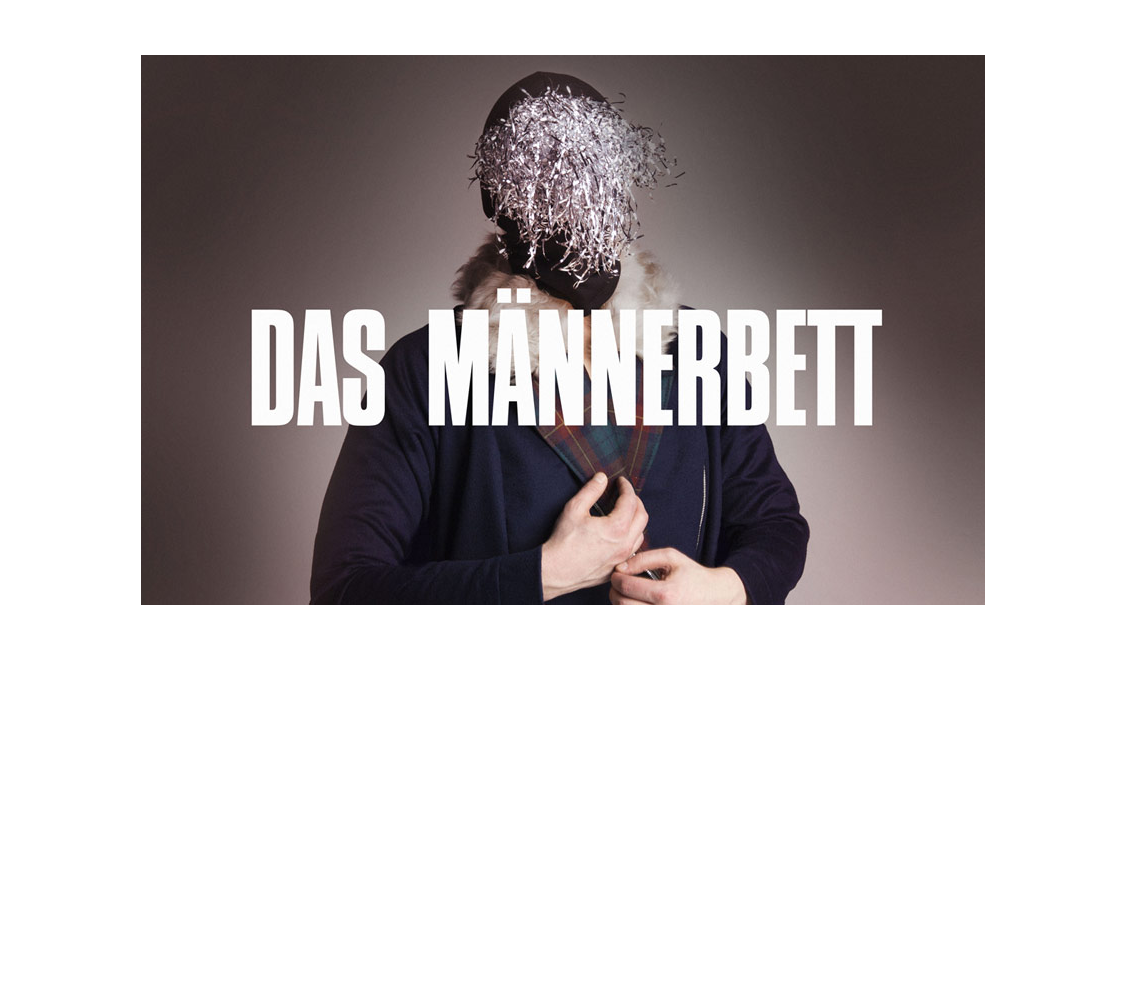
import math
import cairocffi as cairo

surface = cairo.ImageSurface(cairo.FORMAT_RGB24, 1126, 982)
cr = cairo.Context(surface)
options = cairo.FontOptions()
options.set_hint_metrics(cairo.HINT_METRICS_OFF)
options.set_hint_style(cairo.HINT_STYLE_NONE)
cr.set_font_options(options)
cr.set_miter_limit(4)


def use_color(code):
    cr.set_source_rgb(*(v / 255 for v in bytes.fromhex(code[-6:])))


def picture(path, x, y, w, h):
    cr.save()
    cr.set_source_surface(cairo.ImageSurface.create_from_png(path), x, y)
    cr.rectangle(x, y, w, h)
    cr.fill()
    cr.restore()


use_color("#ffffff")
cr.paint()
picture("img1.png", 141, 55, 844, 550)
surface.write_to_png("result.png")
